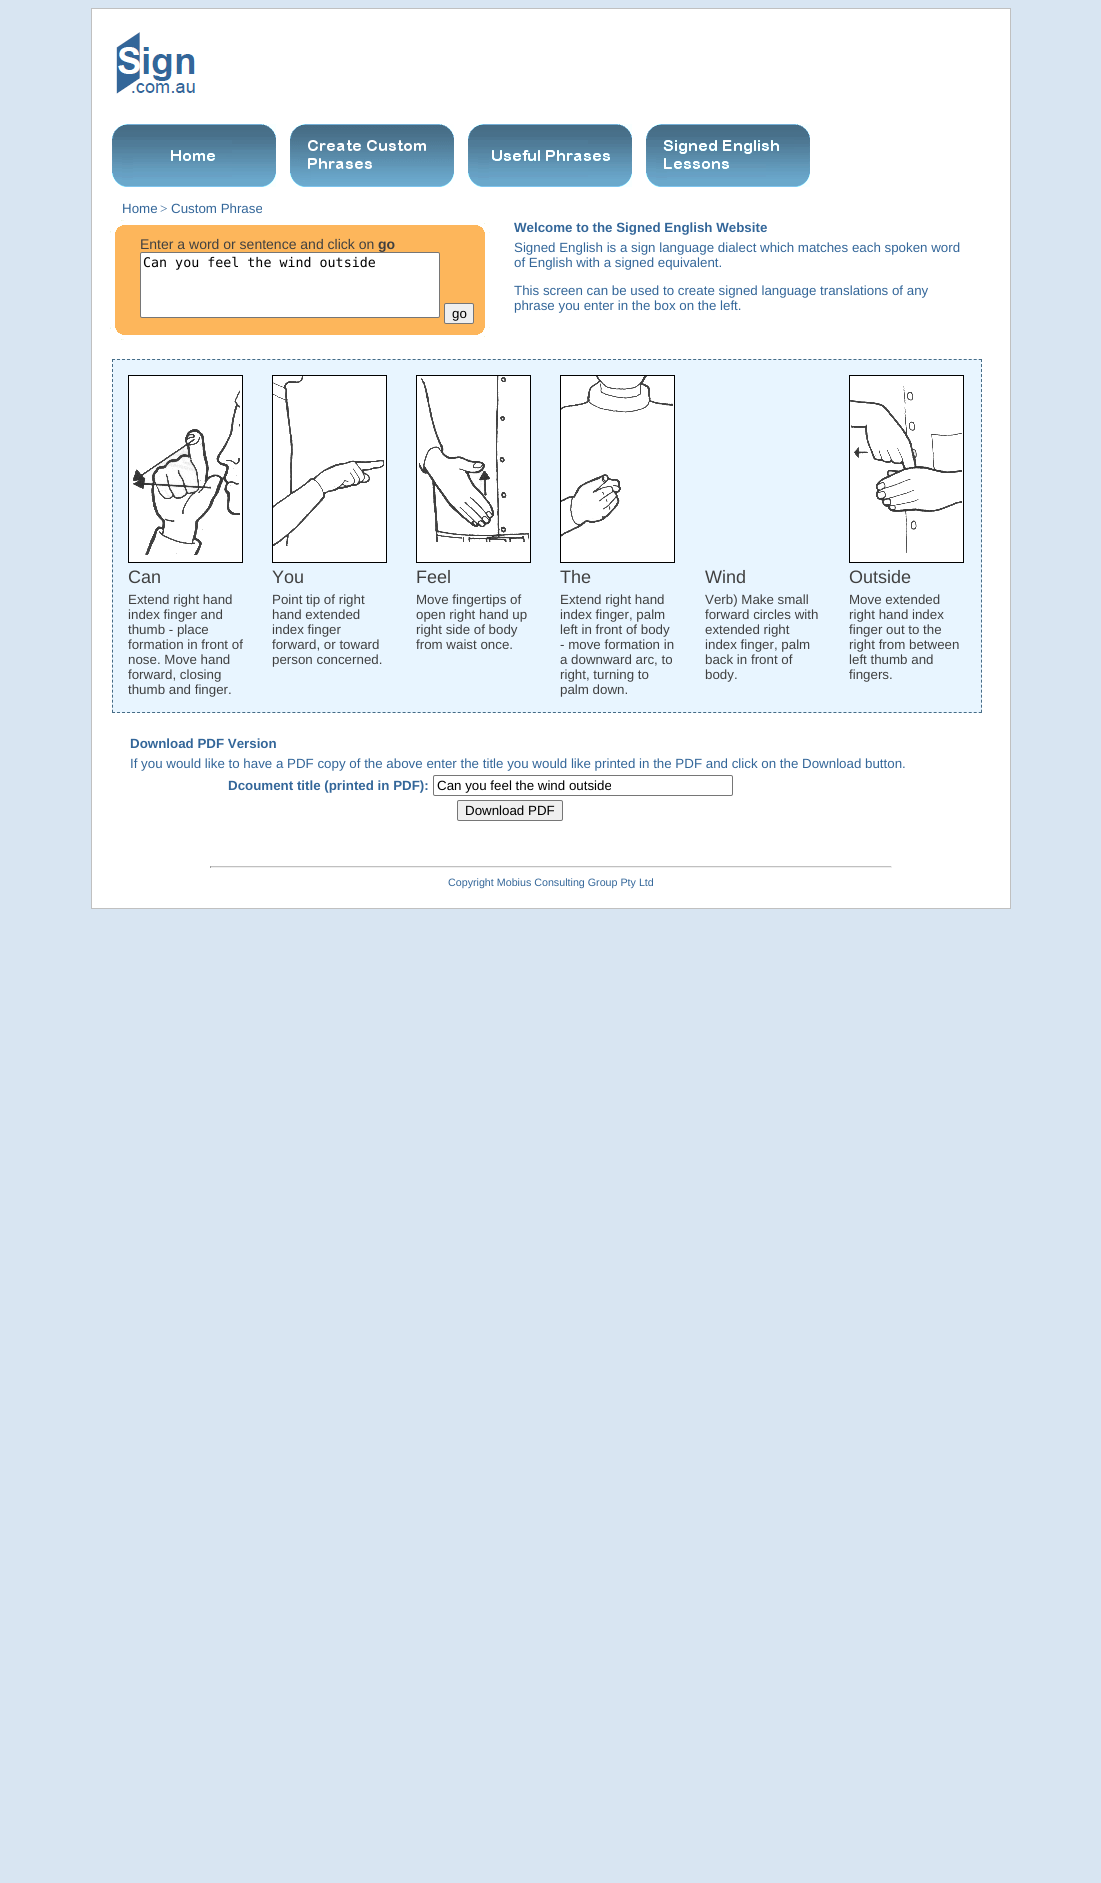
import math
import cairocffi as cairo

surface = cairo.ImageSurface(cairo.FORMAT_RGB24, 1101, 1883)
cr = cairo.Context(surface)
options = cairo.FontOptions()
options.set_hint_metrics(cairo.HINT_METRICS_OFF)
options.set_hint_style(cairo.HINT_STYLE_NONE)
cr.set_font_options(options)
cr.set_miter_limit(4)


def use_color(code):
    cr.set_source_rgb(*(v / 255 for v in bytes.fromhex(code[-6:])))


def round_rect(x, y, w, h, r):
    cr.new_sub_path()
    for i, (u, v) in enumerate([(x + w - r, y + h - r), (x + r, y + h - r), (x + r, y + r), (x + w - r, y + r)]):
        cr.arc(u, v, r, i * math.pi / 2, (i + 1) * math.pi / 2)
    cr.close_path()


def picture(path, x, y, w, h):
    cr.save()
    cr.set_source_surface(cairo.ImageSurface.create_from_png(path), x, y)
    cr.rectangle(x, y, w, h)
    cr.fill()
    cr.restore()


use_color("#d8e5f2")
cr.paint()
use_color("#ffffff")
cr.rectangle(91.5, 8.5, 919, 900)
cr.fill_preserve()
use_color("#c0c0c0")
cr.set_line_width(1)
cr.stroke()
picture("img1.png", 116, 32, 79, 62)
picture("img2.png", 112, 124, 164, 63)
picture("img3.png", 290, 124, 164, 63)
picture("img4.png", 468, 124, 164, 63)
picture("img5.png", 646, 124, 164, 63)
cr.select_font_face("Liberation Sans")
cr.set_font_size(13.33)
use_color("#336699")
cr.move_to(122, 213)
cr.show_text("Home")
cr.select_font_face("Liberation Serif")
cr.move_to(160, 213)
cr.show_text(">")
cr.select_font_face("Liberation Sans")
cr.move_to(171, 213)
cr.show_text("Custom Phrase")
picture("img6.png", 110, 220, 380, 16)
use_color("#fdb65b")
cr.rectangle(115, 236, 370, 88)
cr.fill()
cr.set_font_size(14)
use_color("#404040")
cr.move_to(140, 249)
cr.show_text("Enter a word or sentence and click on")
cr.select_font_face("Liberation Sans", cairo.FONT_SLANT_NORMAL, cairo.FONT_WEIGHT_BOLD)
cr.move_to(378, 249)
cr.show_text("go")
use_color("#ffffff")
round_rect(140.5, 252.5, 299, 65, 1.5)
cr.fill_preserve()
use_color("#767676")
cr.stroke()
cr.select_font_face("DejaVu Sans Mono")
cr.set_font_size(13.33)
use_color("#000000")
cr.move_to(143, 267)
cr.show_text("Can you feel the wind outside")
use_color("#efefef")
round_rect(444.5, 303.5, 29, 20, 1.5)
cr.fill_preserve()
use_color("#767676")
cr.stroke()
cr.select_font_face("Liberation Sans")
use_color("#000000")
cr.move_to(452, 318)
cr.show_text("go")
picture("img7.png", 110, 324, 380, 16)
cr.select_font_face("Liberation Sans", cairo.FONT_SLANT_NORMAL, cairo.FONT_WEIGHT_BOLD)
use_color("#336699")
cr.move_to(514, 232)
cr.show_text("Welcome to the Signed English Website")
cr.select_font_face("Liberation Sans")
cr.move_to(514, 252)
cr.show_text("Signed English is a sign language dialect which matches each spoken word")
cr.move_to(514, 267)
cr.show_text("of English with a signed equivalent.")
cr.move_to(514, 295)
cr.show_text("This screen can be used to create signed language translations of any")
cr.move_to(514, 310)
cr.show_text("phrase you enter in the box on the left.")
use_color("#e8f5ff")
cr.rectangle(112, 359, 870, 354)
cr.fill()
cr.new_path()
cr.move_to(112, 359.5)
cr.line_to(982, 359.5)
use_color("#466c86")
cr.set_dash([3, 2.01])
cr.stroke()
cr.new_path()
cr.move_to(981.5, 359)
cr.line_to(981.5, 713)
cr.stroke()
cr.new_path()
cr.move_to(112, 712.5)
cr.line_to(982, 712.5)
cr.stroke()
cr.new_path()
cr.move_to(112.5, 359)
cr.line_to(112.5, 713)
cr.stroke()
picture("img8.png", 128, 375, 115, 188)
cr.set_font_size(18)
use_color("#404040")
cr.move_to(128, 583)
cr.show_text("Can")
cr.set_font_size(13.33)
cr.move_to(128, 604)
cr.show_text("Extend right hand")
cr.move_to(128, 619)
cr.show_text("index finger and")
cr.move_to(128, 634)
cr.show_text("thumb - place")
cr.move_to(128, 649)
cr.show_text("formation in front of")
cr.move_to(128, 664)
cr.show_text("nose. Move hand")
cr.move_to(128, 679)
cr.show_text("forward, closing")
cr.move_to(128, 694)
cr.show_text("thumb and finger.")
picture("img9.png", 272, 375, 115, 188)
cr.set_font_size(18)
cr.move_to(272, 583)
cr.show_text("You")
cr.set_font_size(13.33)
cr.move_to(272, 604)
cr.show_text("Point tip of right")
cr.move_to(272, 619)
cr.show_text("hand extended")
cr.move_to(272, 634)
cr.show_text("index finger")
cr.move_to(272, 649)
cr.show_text("forward, or toward")
cr.move_to(272, 664)
cr.show_text("person concerned.")
picture("img10.png", 416, 375, 115, 188)
cr.set_font_size(18)
cr.move_to(416, 583)
cr.show_text("Feel")
cr.set_font_size(13.33)
cr.move_to(416, 604)
cr.show_text("Move fingertips of")
cr.move_to(416, 619)
cr.show_text("open right hand up")
cr.move_to(416, 634)
cr.show_text("right side of body")
cr.move_to(416, 649)
cr.show_text("from waist once.")
picture("img11.png", 560, 375, 115, 188)
cr.set_font_size(18)
cr.move_to(560, 583)
cr.show_text("The")
cr.set_font_size(13.33)
cr.move_to(560, 604)
cr.show_text("Extend right hand")
cr.move_to(560, 619)
cr.show_text("index finger, palm")
cr.move_to(560, 634)
cr.show_text("left in front of body")
cr.move_to(560, 649)
cr.show_text("- move formation in")
cr.move_to(560, 664)
cr.show_text("a downward arc, to")
cr.move_to(560, 679)
cr.show_text("right, turning to")
cr.move_to(560, 694)
cr.show_text("palm down.")
cr.set_font_size(18)
cr.move_to(705, 583)
cr.show_text("Wind")
cr.set_font_size(13.33)
cr.move_to(705, 604)
cr.show_text("Verb) Make small")
cr.move_to(705, 619)
cr.show_text("forward circles with")
cr.move_to(705, 634)
cr.show_text("extended right")
cr.move_to(705, 649)
cr.show_text("index finger, palm")
cr.move_to(705, 664)
cr.show_text("back in front of")
cr.move_to(705, 679)
cr.show_text("body.")
picture("img12.png", 849, 375, 115, 188)
cr.set_font_size(18)
cr.move_to(849, 583)
cr.show_text("Outside")
cr.set_font_size(13.33)
cr.move_to(849, 604)
cr.show_text("Move extended")
cr.move_to(849, 619)
cr.show_text("right hand index")
cr.move_to(849, 634)
cr.show_text("finger out to the")
cr.move_to(849, 649)
cr.show_text("right from between")
cr.move_to(849, 664)
cr.show_text("left thumb and")
cr.move_to(849, 679)
cr.show_text("fingers.")
cr.select_font_face("Liberation Sans", cairo.FONT_SLANT_NORMAL, cairo.FONT_WEIGHT_BOLD)
use_color("#336699")
cr.move_to(130, 748)
cr.show_text("Download PDF Version")
cr.select_font_face("Liberation Sans")
cr.move_to(130, 768)
cr.show_text("If you would like to have a PDF copy of the above enter the title you would like printed in the PDF and click on the Download button.")
cr.select_font_face("Liberation Sans", cairo.FONT_SLANT_NORMAL, cairo.FONT_WEIGHT_BOLD)
cr.move_to(228, 790)
cr.show_text("Dcoument title (printed in PDF):")
round_rect(433.5, 775.5, 299, 20, 1.5)
use_color("#767676")
cr.set_dash([])
cr.stroke()
cr.select_font_face("Liberation Sans")
use_color("#000000")
cr.move_to(437, 790)
cr.show_text("Can you feel the wind outside")
use_color("#efefef")
round_rect(457.5, 800.5, 105, 20, 1.5)
cr.fill_preserve()
use_color("#767676")
cr.stroke()
use_color("#000000")
cr.move_to(465, 815)
cr.show_text("Download PDF")
use_color("#c0c0c0")
cr.rectangle(210, 866, 682, 1)
cr.fill()
use_color("#eeeeee")
cr.rectangle(891, 866, 1, 2)
cr.fill()
cr.rectangle(210, 867, 682, 1)
cr.fill()
use_color("#9f9f9f")
cr.rectangle(210, 866, 1, 2)
cr.fill()
cr.set_font_size(10.7)
use_color("#336699")
cr.move_to(448, 886)
cr.show_text("Copyright Mobius Consulting Group Pty Ltd")
surface.write_to_png("result.png")
